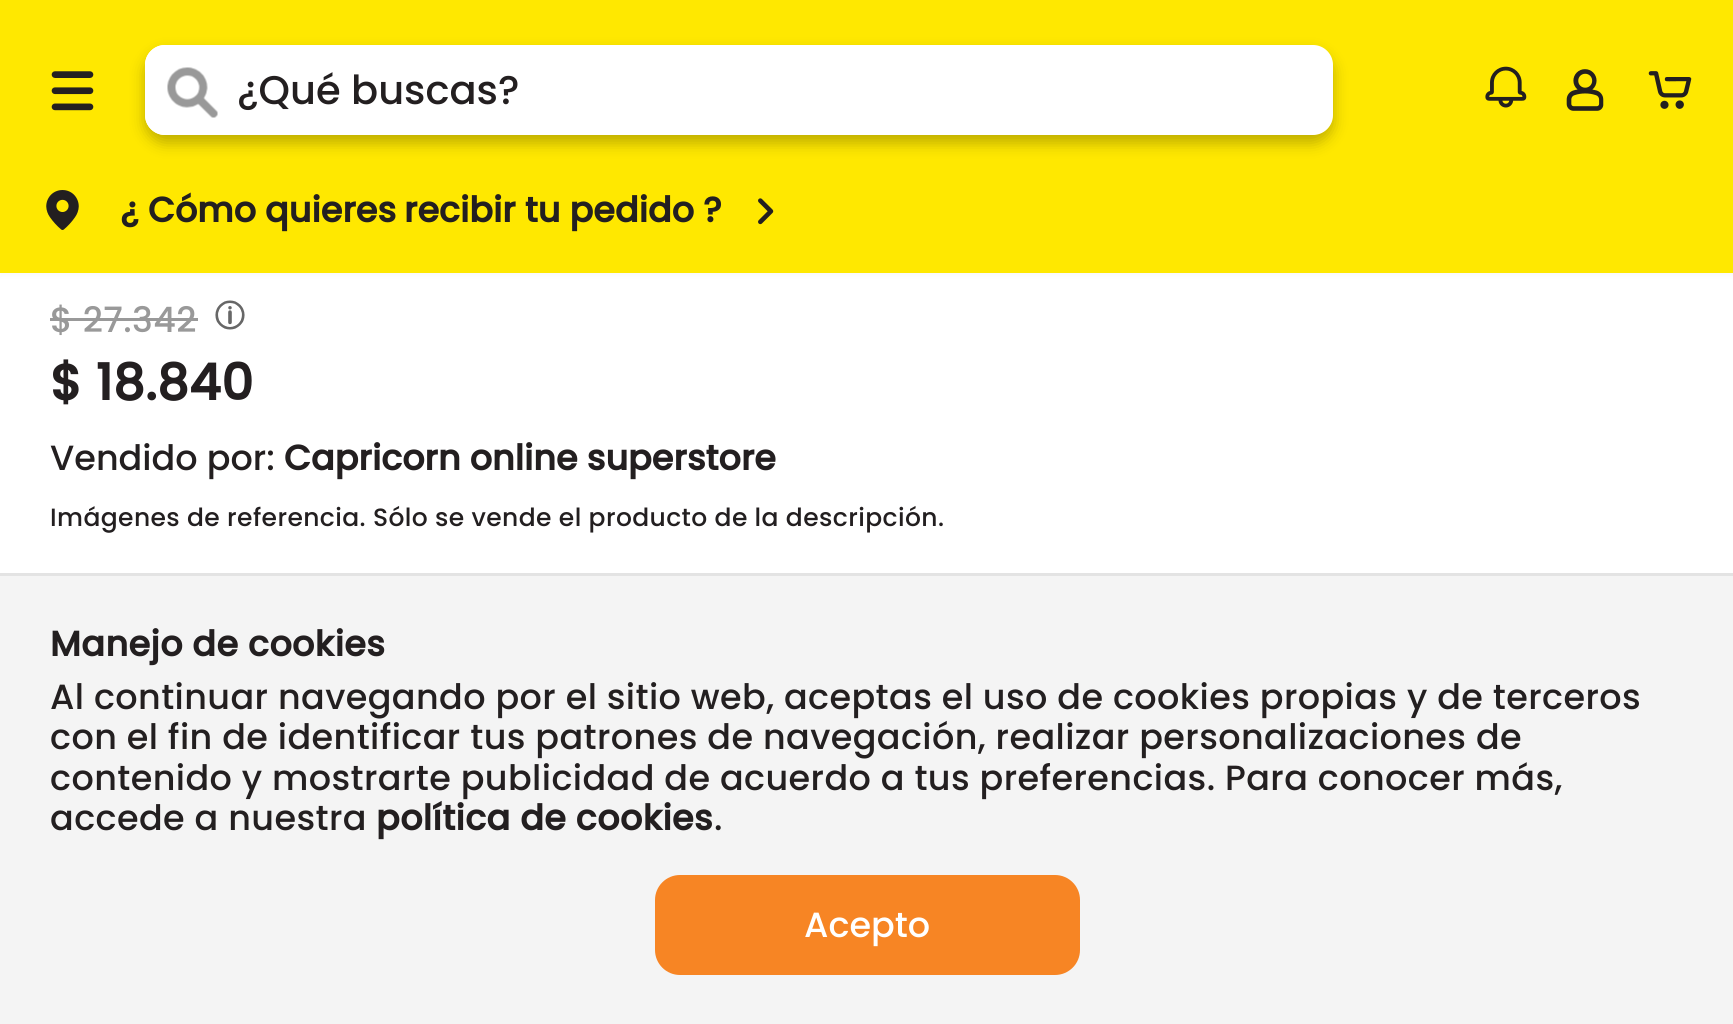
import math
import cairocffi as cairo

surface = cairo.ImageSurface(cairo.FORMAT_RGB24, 1733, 1024)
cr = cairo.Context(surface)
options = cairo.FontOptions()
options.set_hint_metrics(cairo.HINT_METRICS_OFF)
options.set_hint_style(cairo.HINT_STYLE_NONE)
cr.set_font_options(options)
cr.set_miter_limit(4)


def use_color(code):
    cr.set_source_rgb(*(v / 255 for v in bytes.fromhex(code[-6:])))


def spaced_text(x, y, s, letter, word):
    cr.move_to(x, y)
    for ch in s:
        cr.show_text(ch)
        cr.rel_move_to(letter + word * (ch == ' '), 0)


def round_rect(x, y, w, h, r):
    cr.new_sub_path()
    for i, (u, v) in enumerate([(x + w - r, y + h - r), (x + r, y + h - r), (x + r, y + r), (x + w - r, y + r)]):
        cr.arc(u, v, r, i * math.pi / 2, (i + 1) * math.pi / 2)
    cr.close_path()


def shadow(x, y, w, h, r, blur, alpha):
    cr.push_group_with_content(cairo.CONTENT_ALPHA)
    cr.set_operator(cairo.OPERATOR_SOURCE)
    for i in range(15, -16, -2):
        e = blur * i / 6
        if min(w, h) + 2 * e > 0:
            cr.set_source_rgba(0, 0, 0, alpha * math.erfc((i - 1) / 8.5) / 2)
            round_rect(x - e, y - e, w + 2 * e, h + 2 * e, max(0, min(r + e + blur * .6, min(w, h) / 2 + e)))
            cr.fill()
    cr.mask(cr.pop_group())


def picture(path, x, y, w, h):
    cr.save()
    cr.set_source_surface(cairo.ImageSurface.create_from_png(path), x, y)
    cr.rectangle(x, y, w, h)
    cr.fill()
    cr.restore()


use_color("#ffffff")
cr.paint()
use_color("#000000")
shadow(0, 0, 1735, 273, 0, 4, 0.05)
use_color("#ffe800")
cr.rectangle(0, 0, 1733, 273)
cr.fill()
picture("img1.png", 51, 71, 43, 40)
use_color("#ffffff")
round_rect(145, 45, 1188, 90, 20)
cr.fill()
cr.save()
cr.set_fill_rule(cairo.FILL_RULE_EVEN_ODD)
cr.new_path()
cr.move_to(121, 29)
cr.line_to(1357, 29)
cr.line_to(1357, 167)
cr.line_to(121, 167)
cr.close_path()
cr.move_to(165, 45)
cr.line_to(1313, 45)
cr.curve_to(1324, 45, 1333, 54, 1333, 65)
cr.line_to(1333, 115)
cr.curve_to(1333, 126, 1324, 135, 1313, 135)
cr.line_to(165, 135)
cr.curve_to(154, 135, 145, 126, 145, 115)
cr.line_to(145, 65)
cr.curve_to(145, 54, 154, 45, 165, 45)
cr.close_path()
cr.clip()
use_color("#000000")
shadow(145, 53, 1188, 90, 20, 7.5, 0.26)
cr.restore()
cr.new_path()
cr.move_to(165, 45)
cr.line_to(238, 45)
cr.line_to(238, 135)
cr.line_to(165, 135)
cr.curve_to(154, 135, 145, 126, 145, 115)
cr.line_to(145, 65)
cr.curve_to(145, 54, 154, 45, 165, 45)
cr.close_path()
cr.fill()
picture("img2.png", 167, 67, 51, 51)
cr.select_font_face("Poppins Medium")
cr.set_font_size(40)
use_color("#231f20")
cr.move_to(237, 104)
cr.show_text("¿Qué buscas?")
picture("img3.png", 1485, 66, 42, 42)
picture("img4.png", 1566, 69, 38, 42)
picture("img5.png", 1648, 71, 44, 38)
picture("img6.png", 46, 190, 33, 40)
cr.select_font_face("Poppins", cairo.FONT_SLANT_NORMAL, cairo.FONT_WEIGHT_BOLD)
cr.set_font_size(35)
cr.move_to(120, 222)
cr.show_text("¿ Cómo quieres")
cr.move_to(404, 222)
cr.show_text("recibir tu pedido ?")
picture("img7.png", 758, 198, 16, 27)
cr.select_font_face("Poppins Medium")
use_color("#999999")
spaced_text(50, 332, "$ 27.342", 0.4, 0)
cr.rectangle(50, 318, 148, 3)
cr.fill()
picture("img8.png", 215, 300, 30, 30)
cr.select_font_face("Poppins", cairo.FONT_SLANT_NORMAL, cairo.FONT_WEIGHT_BOLD)
cr.set_font_size(50)
use_color("#231f20")
cr.move_to(50, 400)
cr.show_text("$ 18.840")
cr.select_font_face("Poppins Medium")
cr.set_font_size(35)
cr.move_to(50, 470)
cr.show_text("Vendido por:")
cr.select_font_face("Poppins", cairo.FONT_SLANT_NORMAL, cairo.FONT_WEIGHT_BOLD)
cr.move_to(284, 470)
cr.show_text("Capricorn online superstore")
cr.select_font_face("Poppins Medium")
cr.set_font_size(25)
spaced_text(50, 526, "Imágenes de referencia. Sólo se vende el producto de la descripción.", 0.4, 0)
use_color("#f4f4f4")
cr.rectangle(0, 576, 1733, 448)
cr.fill()
use_color("#e3e3e3")
cr.rectangle(0, 573, 1733, 3)
cr.fill()
cr.select_font_face("Poppins", cairo.FONT_SLANT_NORMAL, cairo.FONT_WEIGHT_BOLD)
cr.set_font_size(35)
use_color("#231f20")
spaced_text(50, 656, "Manejo de cookies", 0.4, 0)
cr.select_font_face("Poppins Medium")
spaced_text(50, 709, "Al continuar navegando por el sitio web, aceptas el uso de cookies propias y de terceros", 0.4, 0)
spaced_text(50, 749, "con el fin de identificar tus patrones de navegación, realizar personalizaciones de", 0.4, 0)
spaced_text(50, 790, "contenido y mostrarte publicidad de acuerdo a tus preferencias. Para conocer más,", 0.4, 0)
spaced_text(50, 830, "accede a nuestra", 0.4, 0)
cr.select_font_face("Poppins", cairo.FONT_SLANT_NORMAL, cairo.FONT_WEIGHT_BOLD)
spaced_text(376, 830, "política de cookies", 0.4, 0)
cr.select_font_face("Poppins Medium")
spaced_text(714, 830, ".", 0.4, 0)
use_color("#f78524")
round_rect(655, 875, 425, 100, 25)
cr.fill()
use_color("#ffffff")
cr.move_to(804, 937)
cr.show_text("Acepto")
surface.write_to_png("result.png")
